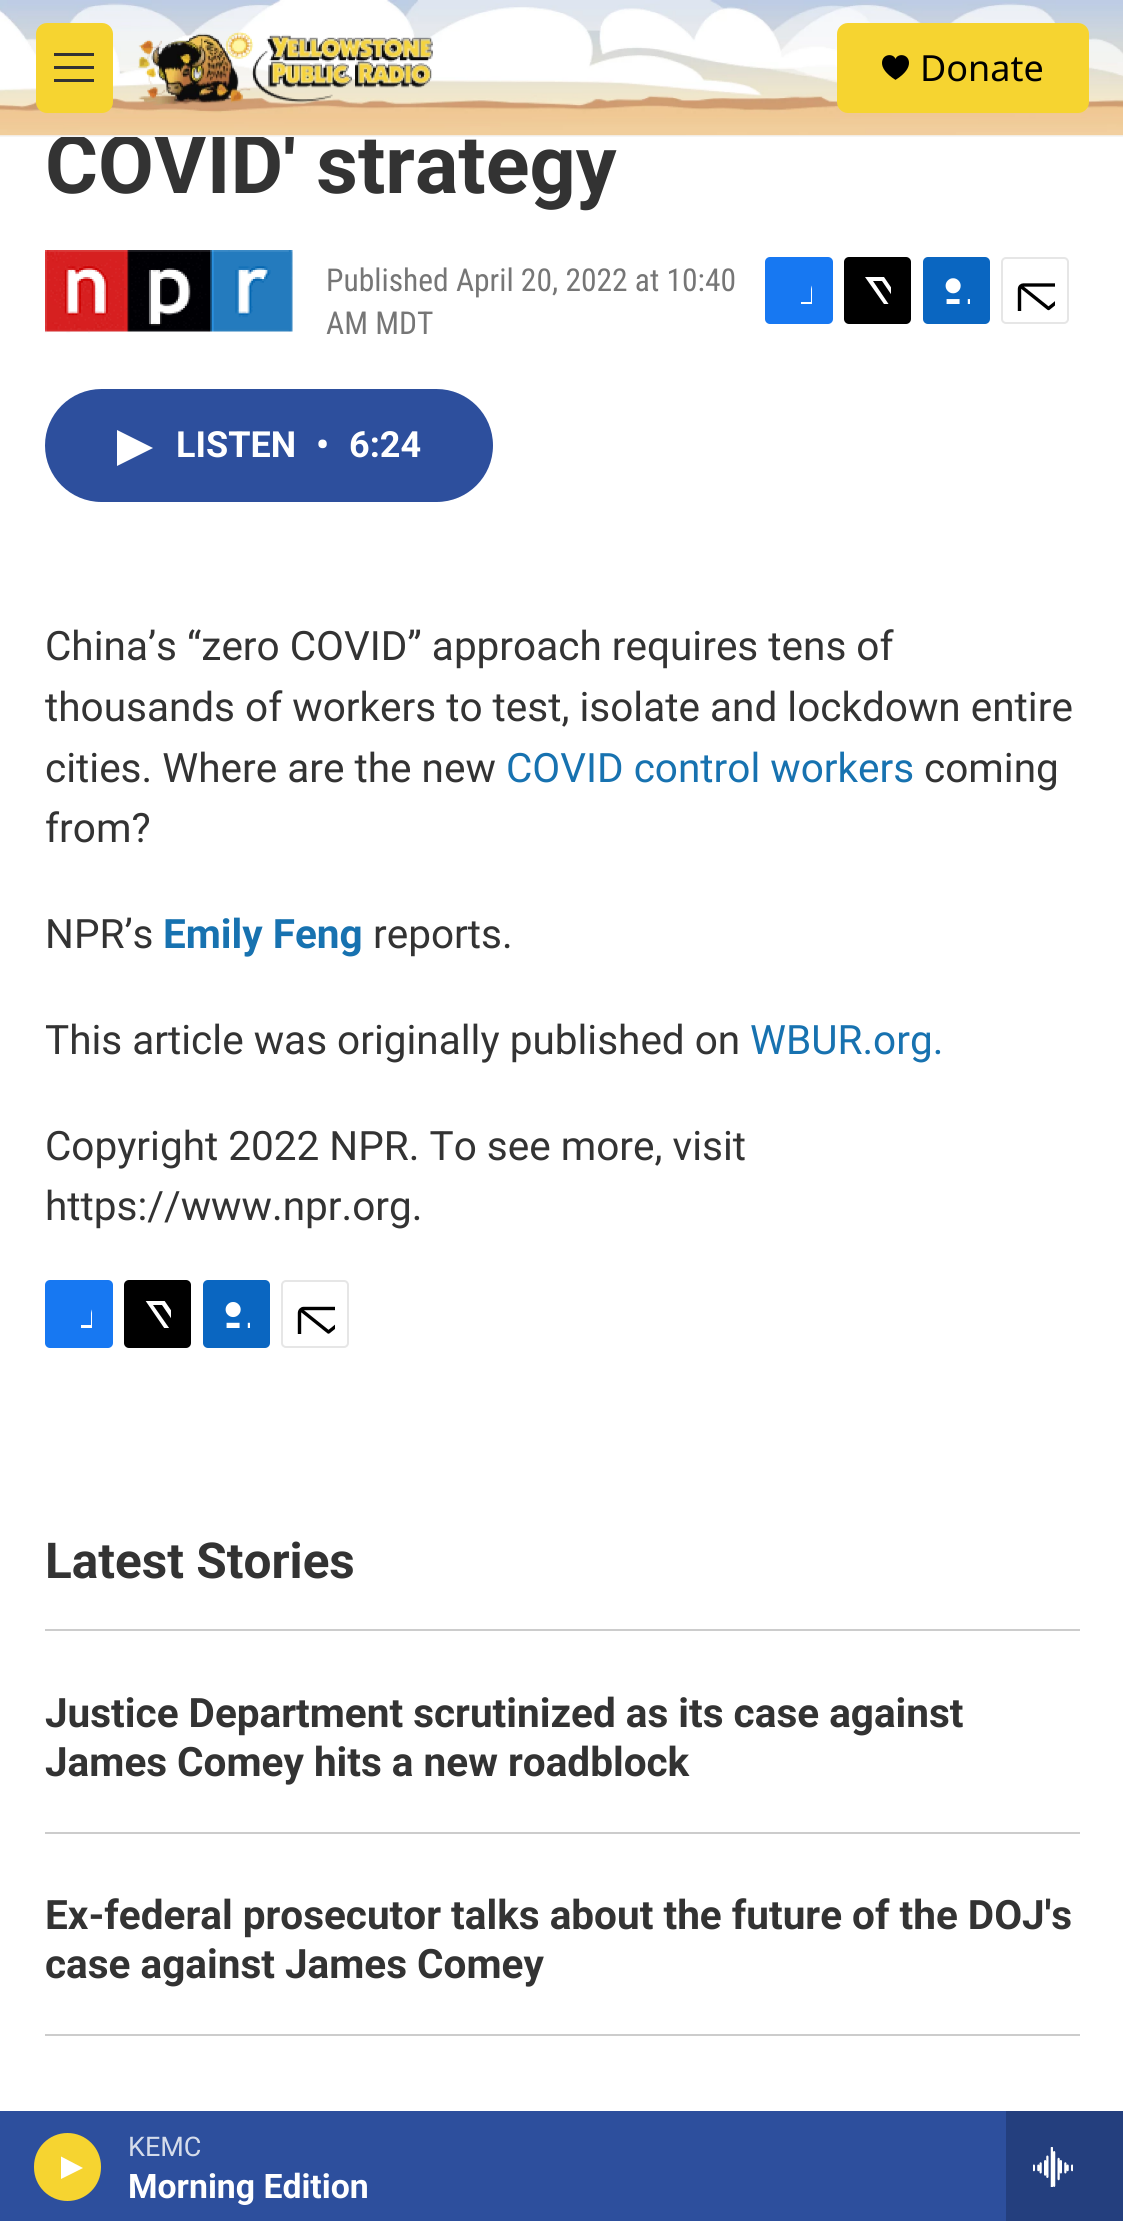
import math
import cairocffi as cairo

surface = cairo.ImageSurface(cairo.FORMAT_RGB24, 1123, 2221)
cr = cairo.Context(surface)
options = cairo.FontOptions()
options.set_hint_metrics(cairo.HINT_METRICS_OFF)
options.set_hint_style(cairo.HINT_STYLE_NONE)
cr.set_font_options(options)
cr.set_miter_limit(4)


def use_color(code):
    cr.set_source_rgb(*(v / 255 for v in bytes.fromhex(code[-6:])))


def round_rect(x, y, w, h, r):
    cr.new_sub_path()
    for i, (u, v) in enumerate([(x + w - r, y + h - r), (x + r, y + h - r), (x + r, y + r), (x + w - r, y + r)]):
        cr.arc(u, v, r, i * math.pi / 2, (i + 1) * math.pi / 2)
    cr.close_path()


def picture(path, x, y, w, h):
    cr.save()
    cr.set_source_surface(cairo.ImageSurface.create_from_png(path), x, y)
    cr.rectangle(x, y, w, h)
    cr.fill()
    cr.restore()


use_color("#ffffff")
cr.paint()
cr.select_font_face("Roboto", cairo.FONT_SLANT_NORMAL, cairo.FONT_WEIGHT_BOLD)
cr.set_font_size(81)
use_color("#333333")
cr.move_to(45, 193)
cr.show_text("COVID' strategy")
use_color("#f5f5f5")
cr.rectangle(0, 135, 1123, 2)
cr.fill()
picture("img1.png", 0, 0, 1123, 136)
use_color("#f6d430")
round_rect(36, 23, 77, 90, 11)
cr.fill()
use_color("#333333")
cr.set_fill_rule(cairo.FILL_RULE_EVEN_ODD)
cr.new_path()
cr.move_to(54, 69)
cr.line_to(54, 66)
cr.line_to(94, 66)
cr.line_to(94, 69)
cr.close_path()
cr.move_to(54, 56)
cr.line_to(54, 53)
cr.line_to(94, 53)
cr.line_to(94, 56)
cr.close_path()
cr.move_to(54, 82)
cr.line_to(54, 79)
cr.line_to(94, 79)
cr.line_to(94, 82)
cr.close_path()
cr.fill()
picture("img2.png", 138, 31, 295, 75)
use_color("#f6d430")
round_rect(837, 23, 252, 90, 11)
cr.fill()
picture("img3.png", 882, 55, 27, 25)
cr.select_font_face("Noto Sans")
cr.set_font_size(36)
use_color("#000000")
cr.move_to(920, 81)
cr.show_text("Donate")
use_color("#2d4f9d")
cr.rectangle(0, 2111, 1006, 110)
cr.fill()
use_color("#f6d430")
round_rect(34, 2133, 67, 68, 33.5)
cr.fill()
use_color("#ffffff")
cr.set_fill_rule(cairo.FILL_RULE_WINDING)
cr.new_path()
cr.move_to(61, 2156.5)
cr.line_to(83, 2168)
cr.line_to(61, 2179)
cr.close_path()
cr.fill()
cr.select_font_face("Roboto")
cr.set_font_size(27)
use_color("#d5dceb")
cr.move_to(128, 2156)
cr.show_text("KEMC")
cr.select_font_face("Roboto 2", cairo.FONT_SLANT_NORMAL, cairo.FONT_WEIGHT_BOLD)
cr.set_font_size(33.75)
use_color("#ffffff")
cr.move_to(128, 2198)
cr.show_text("Morning Edition")
use_color("#243f7e")
cr.rectangle(1006, 2111, 117, 110)
cr.fill()
picture("img4.png", 1033, 2147, 40, 40)
picture("img5.png", 45, 250, 248, 83)
cr.select_font_face("Roboto Condensed")
cr.set_font_size(31.5)
use_color("#767676")
cr.move_to(326, 291)
cr.show_text("Published April 20, 2022 at 10:40")
cr.move_to(326, 334)
cr.show_text("AM MDT")
use_color("#1778f2")
round_rect(765, 257, 68, 67, 5)
cr.fill()
cr.save()
cr.rectangle(785, 277, 27, 27)
cr.clip()
use_color("#ffffff")
cr.new_path()
cr.move_to(823, 324)
cr.line_to(811, 324)
cr.line_to(811, 313)
cr.line_to(801, 313)
cr.line_to(801, 302)
cr.line_to(811, 302)
cr.line_to(811, 289)
cr.curve_to(813, 277, 824, 277, 833, 278)
cr.line_to(833, 288)
cr.curve_to(820, 288, 823, 292, 823, 302)
cr.line_to(833, 302)
cr.line_to(832, 313)
cr.line_to(823, 313)
cr.close_path()
cr.fill()
cr.restore()
use_color("#000000")
round_rect(844, 257, 67, 67, 5)
cr.fill()
cr.save()
cr.rectangle(864, 277, 27, 27)
cr.clip()
use_color("#ffffff")
cr.new_path()
cr.move_to(904, 305)
cr.line_to(911, 315)
cr.curve_to(911, 317, 911, 320, 910, 322)
cr.line_to(882, 281)
cr.line_to(873, 281)
cr.line_to(902, 324)
cr.line_to(897, 324)
cr.line_to(893, 318)
cr.line_to(888, 324)
cr.line_to(882, 324)
cr.line_to(891, 314)
cr.line_to(865, 277)
cr.line_to(884, 277)
cr.line_to(901, 302)
cr.line_to(911, 291)
cr.line_to(911, 297)
cr.close_path()
cr.fill()
cr.restore()
use_color("#0a66c1")
round_rect(923, 257, 67, 67, 5)
cr.fill()
picture("img6.png", 945, 278, 25, 26)
round_rect(1002, 258, 66, 65, 4)
use_color("#e6e6e6")
cr.stroke()
cr.save()
cr.rectangle(1015, 270, 40, 41)
cr.clip()
cr.new_path()
cr.move_to(1077.5, 319.5)
cr.curve_to(1077.5, 321.5, 1075.5, 323.5, 1073.5, 323.5)
cr.line_to(1023.5, 323.5)
cr.curve_to(1021.5, 323.5, 1019.5, 321.5, 1019.5, 319.5)
cr.line_to(1019.5, 289)
cr.curve_to(1019.5, 286.5, 1021.5, 285, 1023.5, 285)
cr.line_to(1073.5, 285)
cr.curve_to(1075.5, 285, 1077.5, 286.5, 1077.5, 289)
cr.close_path()
cr.move_to(1076, 286.5)
cr.line_to(1048.5, 308.5)
cr.line_to(1021, 286.5)
use_color("#000000")
cr.set_line_width(3.4)
cr.set_line_cap(cairo.LINE_CAP_ROUND)
cr.set_line_join(cairo.LINE_JOIN_ROUND)
cr.stroke()
cr.restore()
use_color("#2d4f9d")
round_rect(45, 389, 448, 113, 56.5)
cr.fill()
use_color("#ffffff")
cr.new_path()
cr.move_to(117, 430)
cr.line_to(153, 448)
cr.line_to(117, 466)
cr.close_path()
cr.fill()
cr.select_font_face("Roboto 2", cairo.FONT_SLANT_NORMAL, cairo.FONT_WEIGHT_BOLD)
cr.set_font_size(36)
cr.move_to(176, 457)
cr.show_text("LISTEN")
cr.move_to(316, 457)
cr.show_text("•")
cr.move_to(349, 457)
cr.show_text("6:24")
cr.select_font_face("Roboto")
cr.set_font_size(40.5)
use_color("#333333")
cr.move_to(45, 660)
cr.show_text("China’s “zero COVID” approach requires tens of")
cr.move_to(45, 721)
cr.show_text("thousands of workers to test, isolate and lockdown entire")
cr.move_to(45, 782)
cr.show_text("cities. Where are the new")
use_color("#1772b0")
cr.move_to(506, 782)
cr.show_text("COVID control workers")
use_color("#333333")
cr.move_to(924, 782)
cr.show_text("coming")
cr.move_to(45, 842)
cr.show_text("from?")
cr.move_to(45, 948)
cr.show_text("NPR’s")
cr.select_font_face("Roboto 2", cairo.FONT_SLANT_NORMAL, cairo.FONT_WEIGHT_BOLD)
use_color("#1772b0")
cr.move_to(163, 948)
cr.show_text("Emily Feng")
cr.select_font_face("Roboto")
use_color("#333333")
cr.move_to(373, 948)
cr.show_text("reports.")
cr.move_to(45, 1054)
cr.show_text("This article was originally published on")
use_color("#1772b0")
cr.move_to(750, 1054)
cr.show_text("WBUR.org.")
use_color("#333333")
cr.move_to(45, 1160)
cr.show_text("Copyright 2022 NPR. To see more, visit")
cr.move_to(45, 1220)
cr.show_text("https://www.npr.org.")
use_color("#1778f2")
round_rect(45, 1280, 68, 68, 5)
cr.fill()
cr.save()
cr.rectangle(65, 1301, 27, 27)
cr.clip()
use_color("#ffffff")
cr.new_path()
cr.move_to(103, 1348)
cr.line_to(91, 1348)
cr.line_to(91, 1337)
cr.line_to(81, 1337)
cr.line_to(81, 1325)
cr.line_to(91, 1325)
cr.line_to(91, 1313)
cr.curve_to(93, 1301, 104, 1300, 113, 1302)
cr.line_to(113, 1312)
cr.curve_to(101, 1312, 103, 1315, 103, 1325)
cr.line_to(113, 1325)
cr.line_to(112, 1337)
cr.line_to(103, 1337)
cr.close_path()
cr.fill()
cr.restore()
use_color("#000000")
round_rect(124, 1280, 67, 68, 5)
cr.fill()
cr.save()
cr.rectangle(144, 1301, 27, 27)
cr.clip()
use_color("#ffffff")
cr.new_path()
cr.move_to(184, 1329)
cr.line_to(191, 1339)
cr.curve_to(191, 1341, 191, 1344, 190, 1346)
cr.line_to(162, 1305)
cr.line_to(153, 1305)
cr.line_to(183, 1348)
cr.line_to(177, 1348)
cr.line_to(173, 1342)
cr.line_to(168, 1348)
cr.line_to(162, 1348)
cr.line_to(171, 1338)
cr.line_to(145, 1300)
cr.line_to(164, 1300)
cr.line_to(181, 1325)
cr.line_to(191, 1314)
cr.line_to(191, 1321)
cr.close_path()
cr.fill()
cr.restore()
use_color("#0a66c1")
round_rect(203, 1280, 67, 68, 5)
cr.fill()
picture("img7.png", 225, 1302, 25, 26)
round_rect(282, 1281, 66, 66, 4)
use_color("#e6e6e6")
cr.stroke()
cr.save()
cr.rectangle(295, 1294, 40, 40)
cr.clip()
cr.new_path()
cr.move_to(357.5, 1343)
cr.curve_to(357.5, 1345.5, 355.5, 1347.5, 353.5, 1347.5)
cr.line_to(303.5, 1347.5)
cr.curve_to(301.5, 1347.5, 299.5, 1345.5, 299.5, 1343)
cr.line_to(299.5, 1313)
cr.curve_to(299.5, 1310.5, 301.5, 1308.5, 303.5, 1308.5)
cr.line_to(353.5, 1308.5)
cr.curve_to(355.5, 1308.5, 357.5, 1310.5, 357.5, 1313)
cr.close_path()
cr.move_to(356, 1310)
cr.line_to(328.5, 1332)
cr.line_to(301, 1310)
use_color("#000000")
cr.set_line_width(3.4)
cr.set_line_cap(cairo.LINE_CAP_ROUND)
cr.set_line_join(cairo.LINE_JOIN_ROUND)
cr.stroke()
cr.restore()
use_color("#cccccc")
cr.rectangle(45, 1629, 1035, 2)
cr.fill()
cr.select_font_face("Roboto", cairo.FONT_SLANT_NORMAL, cairo.FONT_WEIGHT_BOLD)
cr.set_font_size(49.5)
use_color("#333333")
cr.move_to(45, 1578)
cr.show_text("Latest Stories")
use_color("#cccccc")
cr.rectangle(45, 1832, 1035, 2)
cr.fill()
cr.set_font_size(40.5)
use_color("#333333")
cr.move_to(45, 1727)
cr.show_text("Justice Department scrutinized as its case against")
cr.move_to(45, 1776)
cr.show_text("James Comey hits a new roadblock")
use_color("#cccccc")
cr.rectangle(45, 2034, 1035, 2)
cr.fill()
use_color("#333333")
cr.move_to(45, 1929)
cr.show_text("Ex-federal prosecutor talks about the future of the DOJ's")
cr.move_to(45, 1978)
cr.show_text("case against James Comey")
surface.write_to_png("result.png")
